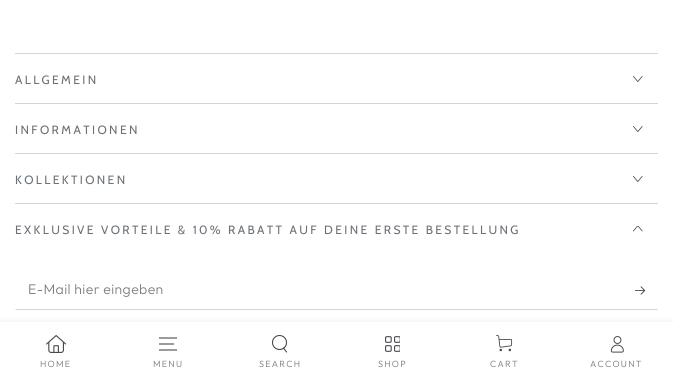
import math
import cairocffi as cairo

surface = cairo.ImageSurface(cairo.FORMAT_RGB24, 673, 382)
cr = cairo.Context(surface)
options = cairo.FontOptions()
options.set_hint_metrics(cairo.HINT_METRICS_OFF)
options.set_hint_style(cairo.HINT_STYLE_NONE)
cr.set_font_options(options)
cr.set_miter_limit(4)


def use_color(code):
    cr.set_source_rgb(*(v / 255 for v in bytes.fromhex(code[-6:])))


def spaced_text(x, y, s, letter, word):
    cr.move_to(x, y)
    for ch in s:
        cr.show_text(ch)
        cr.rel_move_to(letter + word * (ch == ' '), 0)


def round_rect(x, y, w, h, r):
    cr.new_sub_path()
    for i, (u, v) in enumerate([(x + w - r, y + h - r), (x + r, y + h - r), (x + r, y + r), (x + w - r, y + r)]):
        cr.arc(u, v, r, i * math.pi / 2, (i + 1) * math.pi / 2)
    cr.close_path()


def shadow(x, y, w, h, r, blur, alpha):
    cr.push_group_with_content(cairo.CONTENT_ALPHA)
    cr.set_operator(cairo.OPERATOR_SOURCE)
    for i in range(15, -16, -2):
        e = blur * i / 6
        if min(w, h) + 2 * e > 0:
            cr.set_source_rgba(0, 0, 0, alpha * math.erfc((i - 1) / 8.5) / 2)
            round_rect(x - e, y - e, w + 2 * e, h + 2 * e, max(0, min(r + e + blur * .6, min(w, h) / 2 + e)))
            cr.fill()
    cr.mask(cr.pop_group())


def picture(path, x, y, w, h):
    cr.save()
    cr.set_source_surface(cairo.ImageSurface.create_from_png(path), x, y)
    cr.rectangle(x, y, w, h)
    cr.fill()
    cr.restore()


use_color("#ffffff")
cr.paint()
use_color("#d2d5d9")
cr.rectangle(15, 53, 643, 1)
cr.fill()
cr.rectangle(15, 103, 643, 1)
cr.fill()
cr.select_font_face("Cabin")
cr.set_font_size(12)
use_color("#6b7177")
spaced_text(15, 84, "ALLGEMEIN", 2.4, 0)
picture("img1.png", 633, 76, 10, 6)
use_color("#d2d5d9")
cr.rectangle(15, 153, 643, 1)
cr.fill()
use_color("#6b7177")
spaced_text(15, 134, "INFORMATIONEN", 2.4, 0)
picture("img1.png", 633, 126, 10, 6)
use_color("#d2d5d9")
cr.rectangle(15, 203, 643, 1)
cr.fill()
use_color("#6b7177")
spaced_text(15, 184, "KOLLEKTIONEN", 2.4, 0)
picture("img1.png", 633, 176, 10, 6)
spaced_text(15, 234, "EXKLUSIVE VORTEILE & 10% RABATT AUF DEINE ERSTE BESTELLUNG", 2.4, 0)
picture("img2.png", 633, 226, 10, 6)
use_color("#d2d5d9")
cr.new_path()
cr.move_to(658, 310)
cr.line_to(15, 310)
cr.line_to(16, 309)
cr.line_to(657, 309)
cr.close_path()
cr.fill()
cr.select_font_face("Outfit Light")
cr.set_font_size(14)
use_color("#7b7e82")
spaced_text(28, 294, "E-Mail hier eingeben", 0.4, 0)
picture("img3.png", 635, 286, 11, 9)
use_color("#484a4d")
shadow(0, 323, 673, 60, 0, 4, 0.15)
use_color("#ffffff")
cr.rectangle(0, 322, 673, 60)
cr.fill()
picture("img4.png", 46, 335, 20, 18)
cr.set_font_size(9)
use_color("#76777a")
spaced_text(40, 367, "HOME", 1.25, 0)
cr.new_path()
cr.move_to(159, 350)
cr.line_to(177, 350)
cr.move_to(159, 344)
cr.line_to(174, 344)
cr.move_to(159, 338)
cr.line_to(177, 338)
use_color("#484a4d")
cr.set_line_width(1.1)
cr.stroke()
use_color("#76777a")
spaced_text(153, 367, "MENU", 1.25, 0)
cr.new_path()
cr.arc(279.5, 342.5, 7, 0, 2 * math.pi)
use_color("#484a4d")
cr.stroke()
cr.new_path()
cr.move_to(283.5, 348)
cr.line_to(286.5, 352)
cr.set_line_cap(cairo.LINE_CAP_ROUND)
cr.stroke()
use_color("#76777a")
spaced_text(259, 367, "SEARCH", 1.25, 0)
picture("img5.png", 385, 336, 15, 16)
spaced_text(378, 367, "SHOP", 1.25, 0)
picture("img6.png", 496, 335, 17, 17)
spaced_text(490, 367, "CART", 1.25, 0)
picture("img7.png", 610, 336, 14, 17)
spaced_text(590, 367, "ACCOUNT", 1.25, 0)
surface.write_to_png("result.png")
